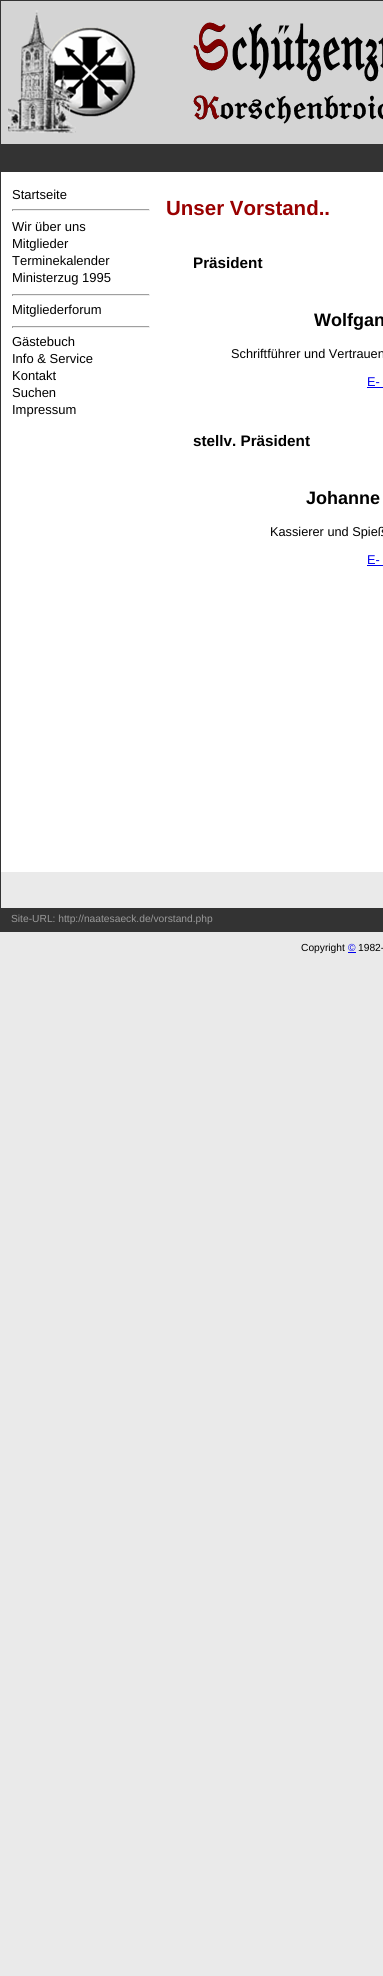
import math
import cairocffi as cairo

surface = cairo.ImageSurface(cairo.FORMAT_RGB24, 383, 1976)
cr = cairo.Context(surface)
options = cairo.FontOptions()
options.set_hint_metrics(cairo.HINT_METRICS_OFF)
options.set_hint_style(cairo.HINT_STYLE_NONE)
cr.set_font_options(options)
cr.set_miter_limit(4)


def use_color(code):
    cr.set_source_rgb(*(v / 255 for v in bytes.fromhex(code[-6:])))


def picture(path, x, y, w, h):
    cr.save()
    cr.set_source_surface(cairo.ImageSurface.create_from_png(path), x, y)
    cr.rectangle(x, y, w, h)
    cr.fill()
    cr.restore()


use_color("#eaeaea")
cr.paint()
use_color("#ffffff")
cr.rectangle(1, 172, 382, 700)
cr.fill()
cr.rectangle(0.5, 0.5, 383, 931)
use_color("#333333")
cr.set_line_width(1)
cr.stroke()
use_color("#d4d4d4")
cr.rectangle(1, 1, 382, 143)
cr.fill()
picture("img1.png", 8, 10, 128, 124)
picture("img2.png", 193, 22, 190, 102)
use_color("#333333")
cr.rectangle(1, 144, 382, 28)
cr.fill()
cr.select_font_face("Liberation Sans")
cr.set_font_size(13)
use_color("#000000")
cr.move_to(12, 199)
cr.show_text("Startseite")
use_color("#9f9f9f")
cr.rectangle(12, 209, 138, 1)
cr.fill()
use_color("#eeeeee")
cr.rectangle(149, 209, 1, 2)
cr.fill()
cr.rectangle(12, 210, 138, 1)
cr.fill()
use_color("#9f9f9f")
cr.rectangle(12, 209, 1, 2)
cr.fill()
use_color("#000000")
cr.move_to(12, 231)
cr.show_text("Wir über uns")
cr.move_to(12, 248)
cr.show_text("Mitglieder")
cr.move_to(12, 265)
cr.show_text("Terminekalender")
cr.move_to(12, 282)
cr.show_text("Ministerzug 1995")
use_color("#9f9f9f")
cr.rectangle(12, 294, 138, 1)
cr.fill()
use_color("#eeeeee")
cr.rectangle(149, 294, 1, 2)
cr.fill()
cr.rectangle(12, 295, 138, 1)
cr.fill()
use_color("#9f9f9f")
cr.rectangle(12, 294, 1, 2)
cr.fill()
use_color("#000000")
cr.move_to(12, 314)
cr.show_text("Mitgliederforum")
use_color("#9f9f9f")
cr.rectangle(12, 326, 138, 1)
cr.fill()
use_color("#eeeeee")
cr.rectangle(149, 326, 1, 2)
cr.fill()
cr.rectangle(12, 327, 138, 1)
cr.fill()
use_color("#9f9f9f")
cr.rectangle(12, 326, 1, 2)
cr.fill()
use_color("#000000")
cr.move_to(12, 346)
cr.show_text("Gästebuch")
cr.move_to(12, 363)
cr.show_text("Info & Service")
cr.move_to(12, 380)
cr.show_text("Kontakt")
cr.move_to(12, 397)
cr.show_text("Suchen")
cr.move_to(12, 414)
cr.show_text("Impressum")
cr.select_font_face("Liberation Sans", cairo.FONT_SLANT_NORMAL, cairo.FONT_WEIGHT_BOLD)
cr.set_font_size(20.5)
use_color("#990000")
cr.move_to(166, 215)
cr.show_text("Unser Vorstand..")
cr.set_font_size(15.25)
use_color("#000000")
cr.move_to(193, 268)
cr.show_text("Präsident")
cr.set_font_size(18)
cr.move_to(314, 326)
cr.show_text("Wolfgan")
cr.select_font_face("Liberation Sans")
cr.set_font_size(12.75)
cr.move_to(231, 358)
cr.show_text("Schriftführer und Vertrauen")
use_color("#0000ee")
cr.move_to(367, 386)
cr.show_text("E-")
cr.rectangle(367, 387, 16, 1)
cr.fill()
cr.select_font_face("Liberation Sans", cairo.FONT_SLANT_NORMAL, cairo.FONT_WEIGHT_BOLD)
cr.set_font_size(15.25)
use_color("#000000")
cr.move_to(193, 446)
cr.show_text("stellv. Präsident")
cr.set_font_size(18)
cr.move_to(306, 504)
cr.show_text("Johanne")
cr.select_font_face("Liberation Sans")
cr.set_font_size(12.75)
cr.move_to(270, 536)
cr.show_text("Kassierer und Spieß")
use_color("#0000ee")
cr.move_to(367, 564)
cr.show_text("E-")
cr.rectangle(367, 565, 16, 1)
cr.fill()
use_color("#333333")
cr.rectangle(1, 908, 382, 23)
cr.fill()
cr.set_font_size(10.25)
use_color("#999999")
cr.move_to(11, 922)
cr.show_text("Site-URL: http://naatesaeck.de/vorstand.php")
use_color("#000000")
cr.move_to(301, 951)
cr.show_text("Copyright")
use_color("#0000ee")
cr.move_to(348, 951)
cr.show_text("©")
cr.rectangle(348, 952, 8, 1)
cr.fill()
use_color("#000000")
cr.move_to(358, 951)
cr.show_text("1982-")
surface.write_to_png("result.png")
